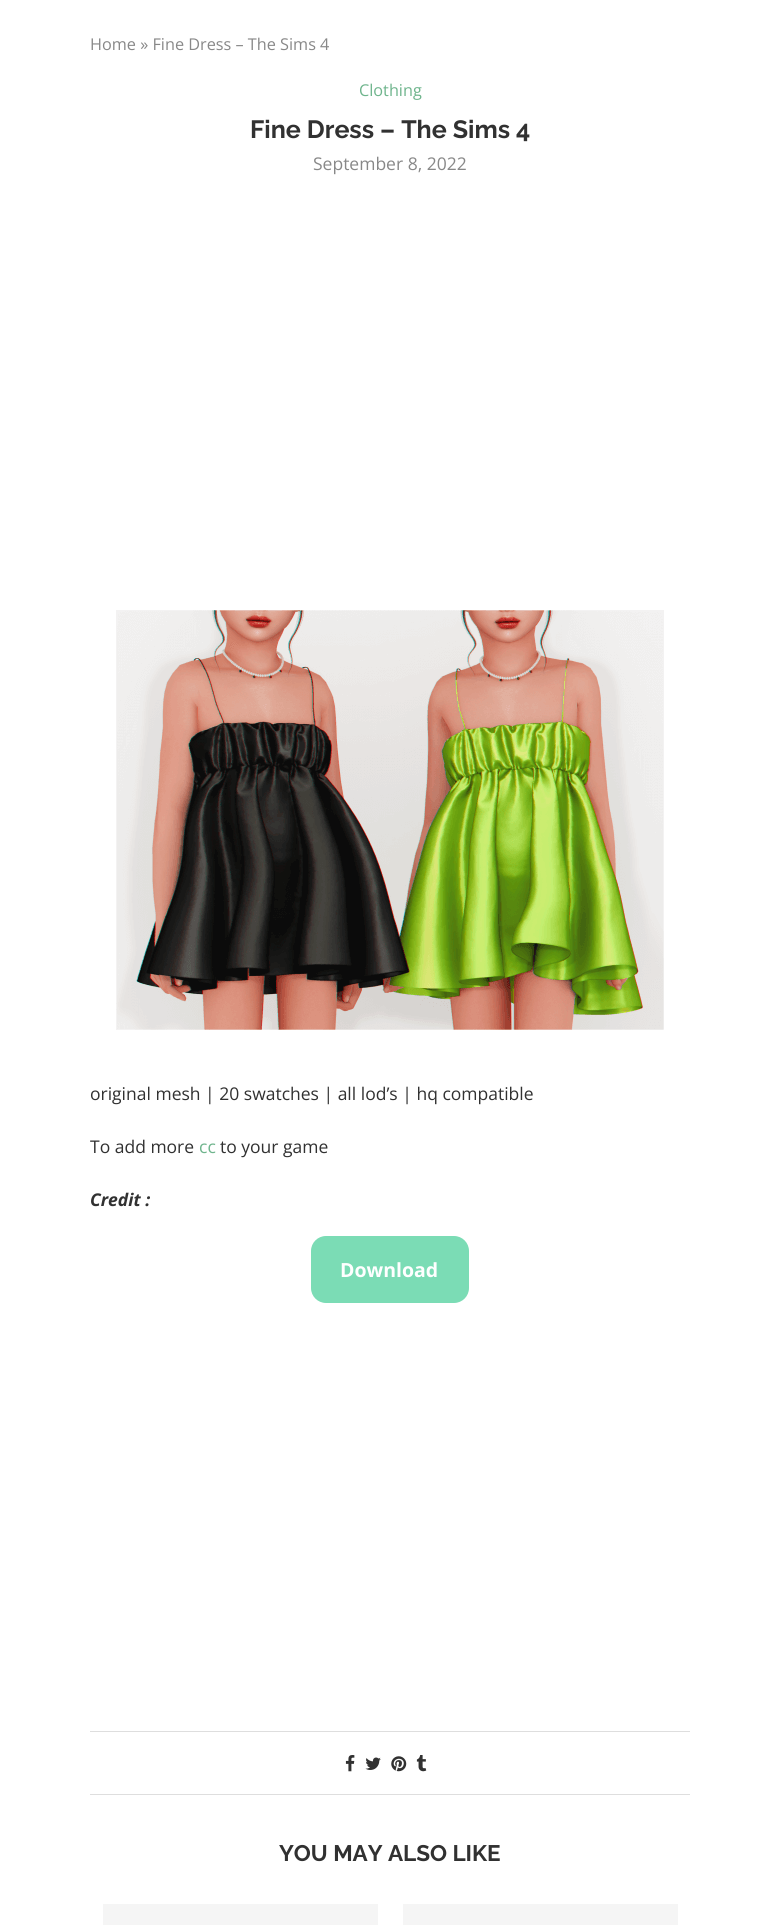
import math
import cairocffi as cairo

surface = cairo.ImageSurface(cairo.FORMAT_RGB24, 779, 1925)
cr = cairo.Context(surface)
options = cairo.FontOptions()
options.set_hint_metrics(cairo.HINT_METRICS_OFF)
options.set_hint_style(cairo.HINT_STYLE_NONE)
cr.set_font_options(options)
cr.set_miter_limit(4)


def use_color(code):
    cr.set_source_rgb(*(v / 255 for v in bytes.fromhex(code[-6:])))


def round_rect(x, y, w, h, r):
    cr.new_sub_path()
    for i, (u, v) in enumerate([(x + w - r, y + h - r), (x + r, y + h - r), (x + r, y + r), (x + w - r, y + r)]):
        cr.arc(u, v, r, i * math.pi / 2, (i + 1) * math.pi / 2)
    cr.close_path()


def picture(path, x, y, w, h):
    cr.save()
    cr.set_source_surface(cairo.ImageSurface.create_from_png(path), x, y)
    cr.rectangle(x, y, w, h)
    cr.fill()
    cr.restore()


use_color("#ffffff")
cr.paint()
cr.select_font_face("Open Sans")
cr.set_font_size(16.25)
use_color("#888888")
cr.move_to(90, 50)
cr.show_text("Home » Fine Dress – The Sims 4")
use_color("#6eb48c")
cr.move_to(359, 96)
cr.show_text("Clothing")
cr.select_font_face("Raleway", cairo.FONT_SLANT_NORMAL, cairo.FONT_WEIGHT_BOLD)
cr.set_font_size(25)
use_color("#313131")
cr.move_to(250, 138)
cr.show_text("Fine Dress – The Sims 4")
cr.select_font_face("Open Sans")
cr.set_font_size(17.5)
use_color("#888888")
cr.move_to(313, 170)
cr.show_text("September 8, 2022")
picture("img1.png", 116, 610, 548, 420)
use_color("#313131")
cr.move_to(90, 1100)
cr.show_text("original mesh | 20 swatches | all lod’s | hq compatible")
cr.move_to(90, 1153)
cr.show_text("To add more")
use_color("#6eb48c")
cr.move_to(199, 1153)
cr.show_text("cc")
use_color("#313131")
cr.move_to(220, 1153)
cr.show_text("to your game")
cr.select_font_face("Open Sans", cairo.FONT_SLANT_ITALIC, cairo.FONT_WEIGHT_BOLD)
cr.move_to(90, 1206)
cr.show_text("Credit :")
use_color("#7bdcb5")
round_rect(311, 1236, 158, 67, 15)
cr.fill()
cr.select_font_face("Open Sans", cairo.FONT_SLANT_NORMAL, cairo.FONT_WEIGHT_BOLD)
cr.set_font_size(19.5)
use_color("#ffffff")
cr.move_to(340, 1277)
cr.show_text("Download")
use_color("#dedede")
cr.rectangle(90, 1731, 600, 1)
cr.fill()
picture("img2.png", 345, 1755, 10, 17)
picture("img3.png", 365, 1757, 16, 13)
picture("img4.png", 391, 1756, 16, 16)
picture("img5.png", 416, 1755, 11, 17)
cr.rectangle(90, 1794, 600, 1)
cr.fill()
cr.select_font_face("Raleway", cairo.FONT_SLANT_NORMAL, cairo.FONT_WEIGHT_BOLD)
cr.set_font_size(22.5)
use_color("#313131")
cr.move_to(279, 1861)
cr.show_text("YOU MAY ALSO LIKE")
use_color("#f5f5f5")
cr.rectangle(103, 1904, 275, 21)
cr.fill()
cr.rectangle(403, 1904, 275, 21)
cr.fill()
surface.write_to_png("result.png")
